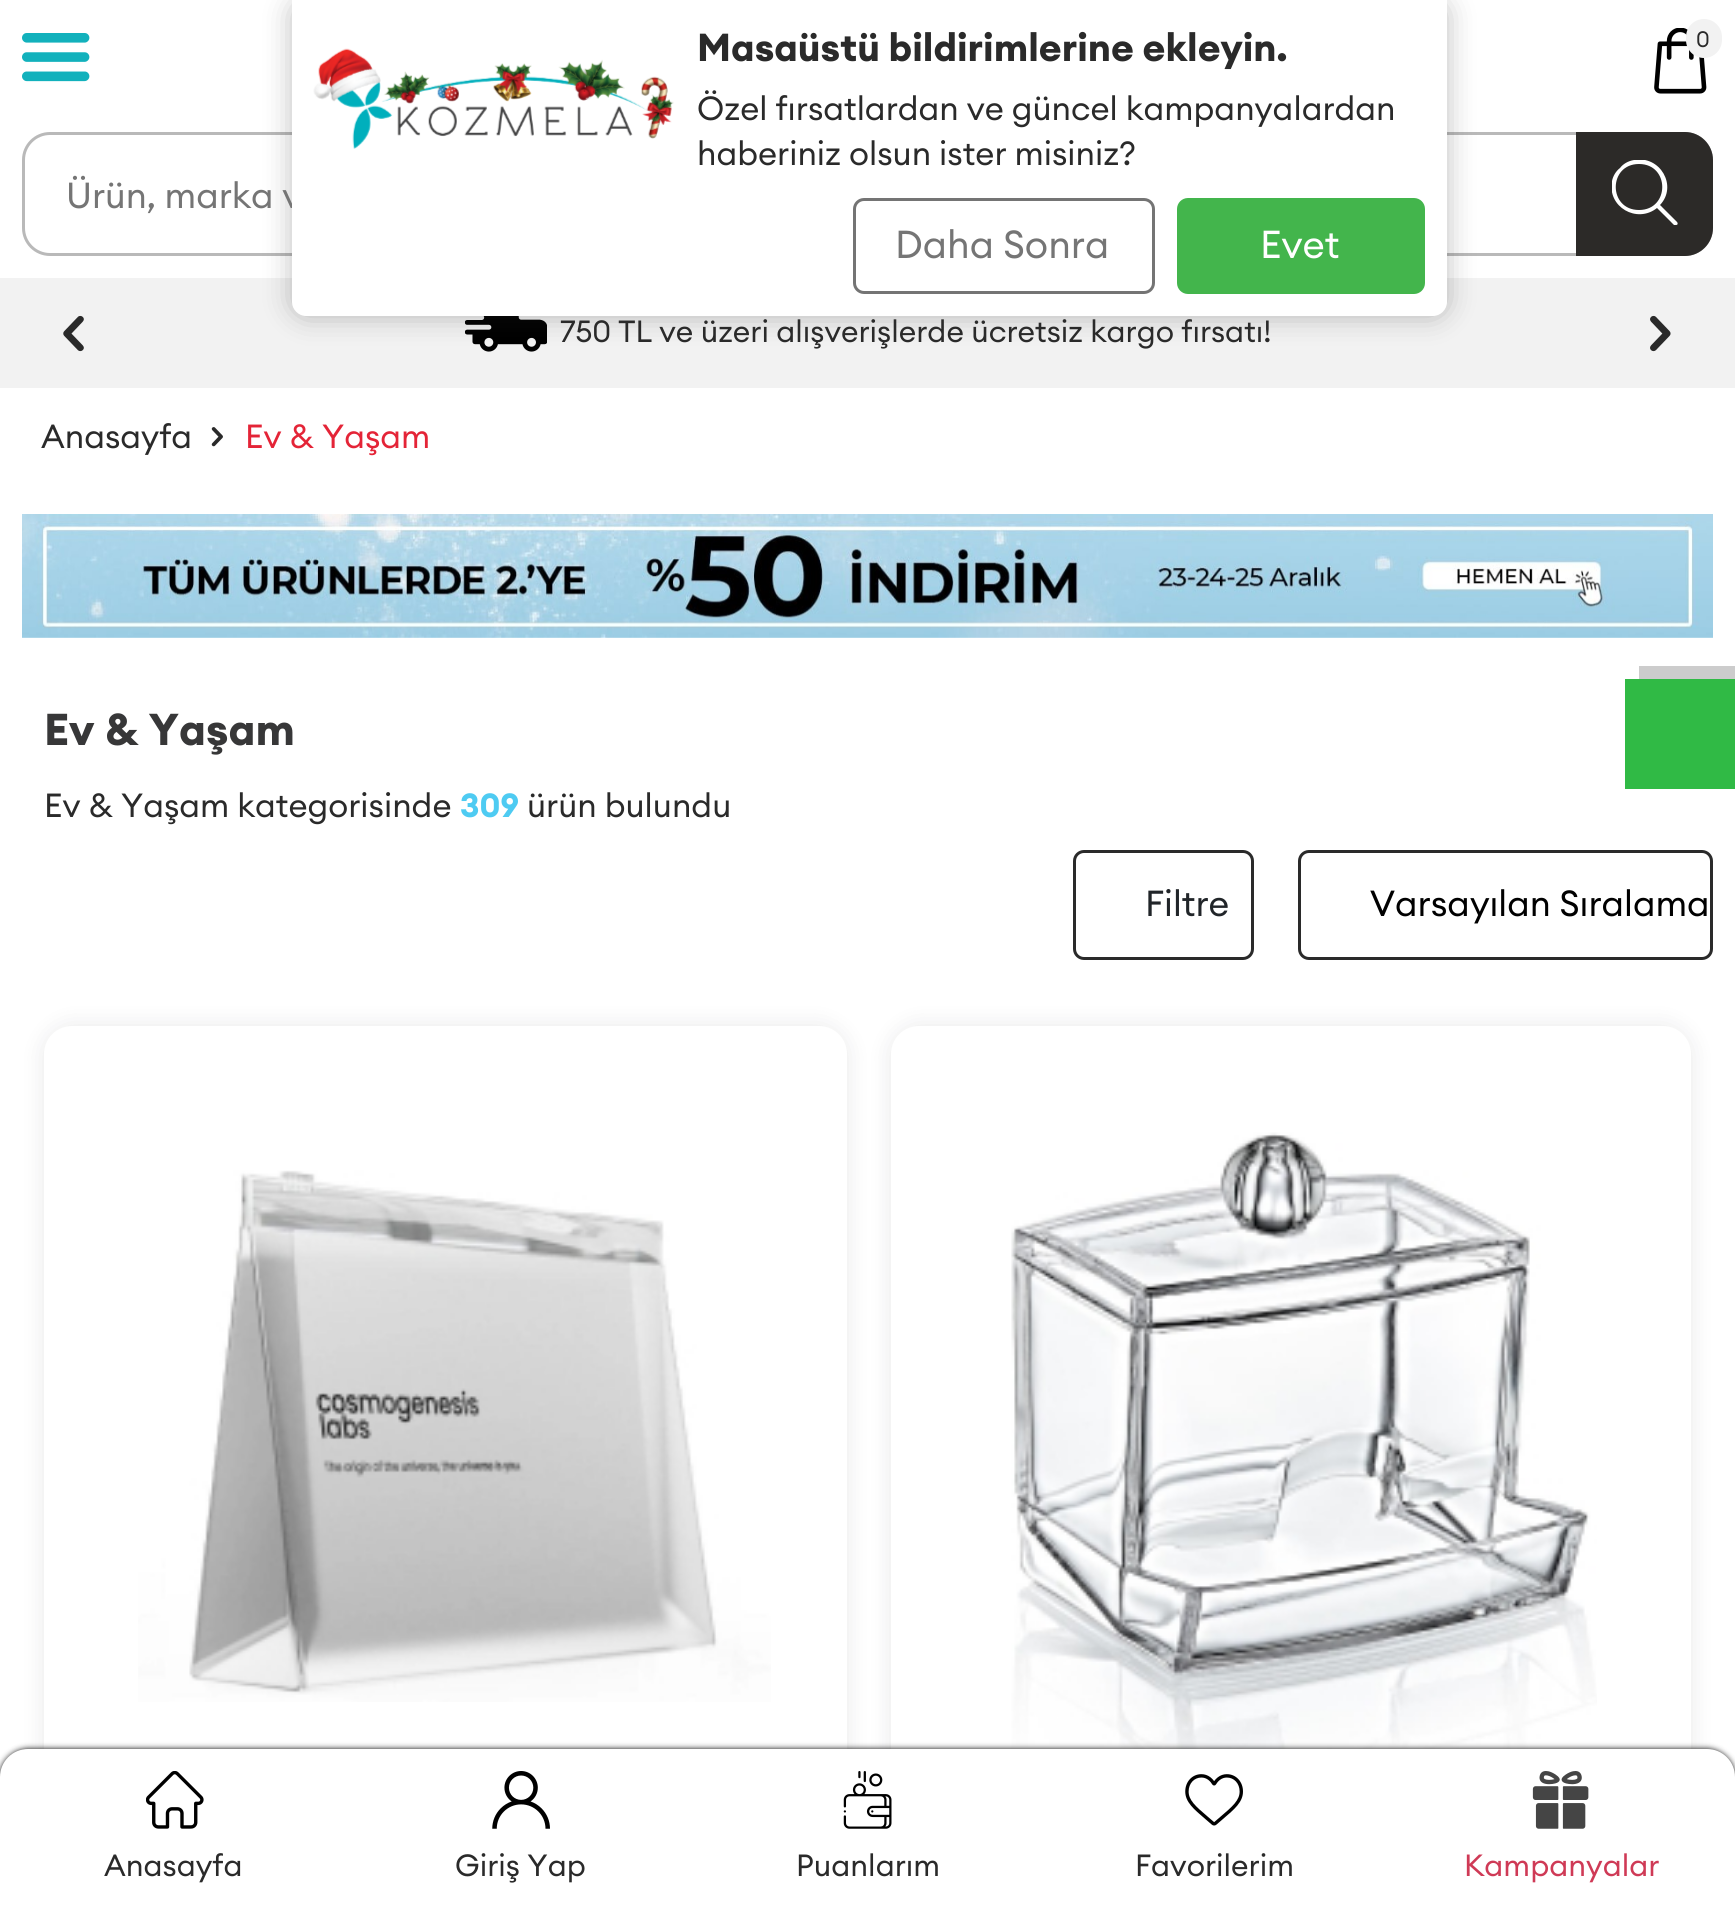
import math
import cairocffi as cairo

surface = cairo.ImageSurface(cairo.FORMAT_RGB24, 1735, 1907)
cr = cairo.Context(surface)
options = cairo.FontOptions()
options.set_hint_metrics(cairo.HINT_METRICS_OFF)
options.set_hint_style(cairo.HINT_STYLE_NONE)
cr.set_font_options(options)
cr.set_miter_limit(4)


def use_color(code):
    cr.set_source_rgb(*(v / 255 for v in bytes.fromhex(code[-6:])))


def round_rect(x, y, w, h, r):
    cr.new_sub_path()
    for i, (u, v) in enumerate([(x + w - r, y + h - r), (x + r, y + h - r), (x + r, y + r), (x + w - r, y + r)]):
        cr.arc(u, v, r, i * math.pi / 2, (i + 1) * math.pi / 2)
    cr.close_path()


def shadow(x, y, w, h, r, blur, alpha):
    cr.push_group_with_content(cairo.CONTENT_ALPHA)
    cr.set_operator(cairo.OPERATOR_SOURCE)
    for i in range(15, -16, -2):
        e = blur * i / 6
        if min(w, h) + 2 * e > 0:
            cr.set_source_rgba(0, 0, 0, alpha * math.erfc((i - 1) / 8.5) / 2)
            round_rect(x - e, y - e, w + 2 * e, h + 2 * e, max(0, min(r + e + blur * .6, min(w, h) / 2 + e)))
            cr.fill()
    cr.mask(cr.pop_group())


def picture(path, x, y, w, h):
    cr.save()
    cr.set_source_surface(cairo.ImageSurface.create_from_png(path), x, y)
    cr.rectangle(x, y, w, h)
    cr.fill()
    cr.restore()


use_color("#ffffff")
cr.paint()
round_rect(23.5, 133.5, 1688, 121, 26.5)
use_color("#b9b9b9")
cr.set_line_width(3)
cr.stroke()
use_color("#f2f2f2")
cr.rectangle(0, 278, 1735, 110)
cr.fill()
picture("img13.png", 465, 316, 82, 36)
use_color("#282828")
shadow(292, 0, 1155, 316, 14, 14, 0.3)
cr.select_font_face("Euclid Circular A")
cr.set_font_size(35.75)
use_color("#757575")
cr.move_to(66, 208)
cr.show_text("Ürün, marka v")
use_color("#ffffff")
cr.new_path()
cr.move_to(292, 0)
cr.line_to(1447, 0)
cr.line_to(1447, 302)
cr.curve_to(1447, 309.5, 1440.5, 316, 1433, 316)
cr.line_to(306, 316)
cr.curve_to(298.5, 316, 292, 309.5, 292, 302)
cr.close_path()
cr.fill()
picture("img1.png", 313, 48, 361, 101)
cr.select_font_face("Euclid Circular A", cairo.FONT_SLANT_NORMAL, cairo.FONT_WEIGHT_BOLD)
cr.set_font_size(38.5)
use_color("#2a2a2a")
cr.move_to(697, 61)
cr.show_text("Masaüstü bildirimlerine ekleyin.")
cr.select_font_face("Euclid Circular A")
cr.set_font_size(33)
cr.move_to(697, 120)
cr.show_text("Özel fırsatlardan ve güncel kampanyalardan")
cr.move_to(697, 165)
cr.show_text("haberiniz olsun ister misiniz?")
round_rect(854.5, 199.5, 299, 93, 9.5)
use_color("#747474")
cr.stroke()
cr.set_font_size(38.5)
use_color("#757575")
cr.move_to(895, 258)
cr.show_text("Daha Sonra")
use_color("#43b54c")
round_rect(1178.5, 199.5, 245, 93, 9.5)
cr.fill_preserve()
cr.stroke()
use_color("#ffffff")
cr.move_to(1260, 258)
cr.show_text("Evet")
picture("img2.png", 22, 514, 1691, 124)
cr.select_font_face("Euclid Circular A", cairo.FONT_SLANT_NORMAL, cairo.FONT_WEIGHT_BOLD)
cr.set_font_size(44)
use_color("#373738")
cr.move_to(44, 745)
cr.show_text("Ev & Yaşam")
cr.select_font_face("Euclid Circular A")
cr.set_font_size(33)
use_color("#2a2a2a")
cr.move_to(44, 817)
cr.show_text("Ev & Yaşam kategorisinde")
cr.select_font_face("Euclid Circular A", cairo.FONT_SLANT_NORMAL, cairo.FONT_WEIGHT_BOLD)
use_color("#4ecbf2")
cr.move_to(460, 817)
cr.show_text("309")
cr.select_font_face("Euclid Circular A")
use_color("#2a2a2a")
cr.move_to(527, 817)
cr.show_text("ürün bulundu")
round_rect(1074.5, 851.5, 178, 107, 9.5)
cr.stroke()
cr.set_font_size(35.75)
use_color("#212529")
cr.move_to(1145, 916)
cr.show_text("Filtre")
round_rect(1299.5, 851.5, 412, 107, 9.5)
use_color("#2a2a2a")
cr.stroke()
use_color("#000000")
cr.move_to(1370, 916)
cr.show_text("Varsayılan Sıralama")
use_color("#11111a")
shadow(44, 1026, 803, 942, 28, 11, 0.1)
use_color("#ffffff")
round_rect(44, 1026, 803, 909, 28)
cr.fill()
picture("img3.png", 138, 1170, 633, 532)
use_color("#11111a")
shadow(891, 1026, 800, 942, 28, 11, 0.1)
use_color("#ffffff")
round_rect(891, 1026, 800, 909, 28)
cr.fill()
picture("img4.png", 1011, 1132, 586, 617)
picture("img5.png", 22, 33, 68, 49)
picture("img6.png", 1654, 28, 53, 66)
use_color("#f2f2f2")
round_rect(1687.5, 20.5, 33, 36, 16.5)
cr.fill_preserve()
cr.stroke()
cr.set_font_size(22)
use_color("#2a2a2a")
cr.move_to(1696, 47)
cr.show_text("0")
use_color("#2c2a28")
cr.new_path()
cr.move_to(1577.5, 133.5)
cr.line_to(1685, 133.5)
cr.curve_to(1699.5, 133.5, 1711.5, 145.5, 1711.5, 160)
cr.line_to(1711.5, 228)
cr.curve_to(1711.5, 242.5, 1699.5, 254.5, 1685, 254.5)
cr.line_to(1577.5, 254.5)
cr.close_path()
cr.fill_preserve()
cr.stroke()
cr.save()
cr.rectangle(1612, 160, 66, 66)
cr.clip()
use_color("#ffffff")
cr.new_path()
cr.move_to(1677, 222)
cr.line_to(1660, 205)
cr.curve_to(1678, 186, 1660, 155, 1634, 160)
cr.curve_to(1628, 161, 1623, 164, 1620, 168)
cr.curve_to(1616, 171, 1613, 176, 1612, 181)
cr.curve_to(1607, 207, 1637, 224, 1657, 208)
cr.line_to(1674, 225)
cr.line_to(1676, 225)
cr.curve_to(1678, 225, 1678, 223, 1677, 222)
cr.close_path()
cr.move_to(1639, 210)
cr.curve_to(1608, 210, 1608, 164, 1639, 164)
cr.curve_to(1670, 164, 1670, 210, 1639, 210)
cr.close_path()
cr.fill()
cr.restore()
use_color("#000000")
shadow(0, 1749, 1735, 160, 28, 3, 1)
use_color("#ffffff")
cr.new_path()
cr.move_to(28, 1749)
cr.line_to(1707, 1749)
cr.curve_to(1722.5, 1749, 1735, 1761.5, 1735, 1777)
cr.line_to(1735, 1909)
cr.line_to(0, 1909)
cr.line_to(0, 1777)
cr.curve_to(0, 1761.5, 12.5, 1749, 28, 1749)
cr.close_path()
cr.fill()
picture("img7.png", 146, 1771, 58, 58)
cr.set_font_size(30.25)
use_color("#2a2a2a")
cr.move_to(104, 1876)
cr.show_text("Anasayfa")
picture("img8.png", 492, 1771, 58, 58)
cr.move_to(455, 1876)
cr.show_text("Giriş Yap")
picture("img9.png", 843, 1771, 49, 58)
cr.move_to(796, 1876)
cr.show_text("Puanlarım")
picture("img10.png", 1185, 1774, 58, 52)
cr.move_to(1135, 1876)
cr.show_text("Favorilerim")
picture("img11.png", 1532, 1771, 57, 58)
use_color("#cf3a56")
cr.move_to(1464, 1876)
cr.show_text("Kampanyalar")
picture("img12.png", 63, 315, 21, 37)
use_color("#2a2a2a")
cr.move_to(560, 342)
cr.show_text("750 TL ve üzeri alışverişlerde ücretsiz kargo fırsatı!")
picture("img14.png", 1650, 315, 21, 37)
cr.set_font_size(33)
cr.move_to(41, 448)
cr.show_text("Anasayfa")
picture("img15.png", 211, 427, 12, 20)
use_color("#e42437")
cr.move_to(245, 448)
cr.show_text("Ev & Yaşam")
use_color("#cccccc")
cr.new_path()
cr.move_to(1639, 666)
cr.line_to(1639, 679)
cr.line_to(1735, 679)
cr.line_to(1735, 776)
cr.line_to(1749, 776)
cr.line_to(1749, 666)
cr.close_path()
cr.fill()
use_color("#30ba45")
cr.rectangle(1625, 679, 110, 110)
cr.fill()
surface.write_to_png("result.png")
